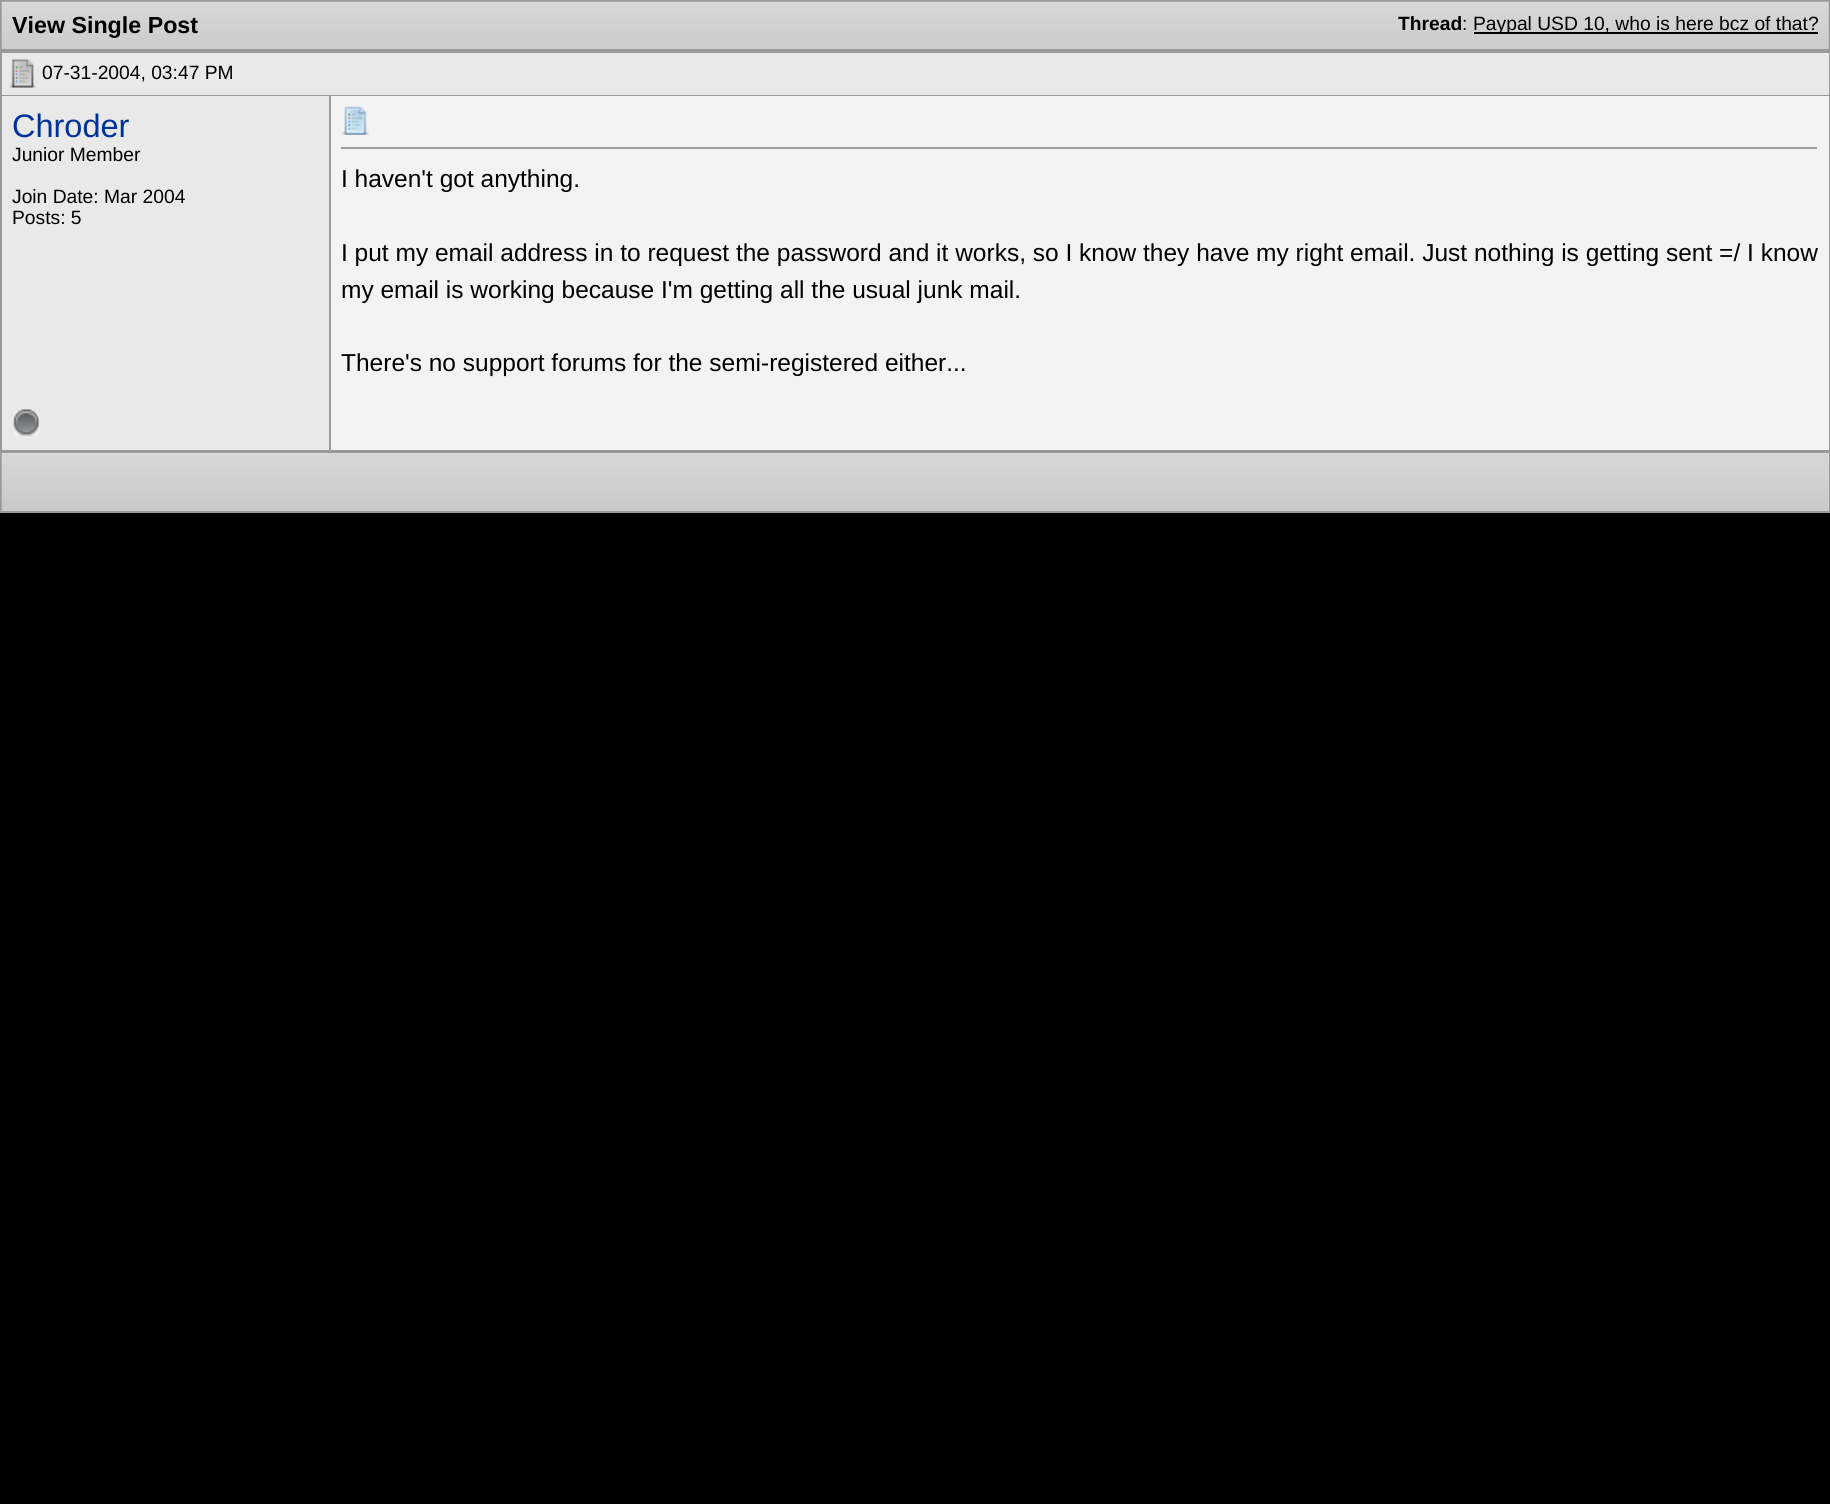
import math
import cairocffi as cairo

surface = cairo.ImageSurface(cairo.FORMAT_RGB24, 1830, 1504)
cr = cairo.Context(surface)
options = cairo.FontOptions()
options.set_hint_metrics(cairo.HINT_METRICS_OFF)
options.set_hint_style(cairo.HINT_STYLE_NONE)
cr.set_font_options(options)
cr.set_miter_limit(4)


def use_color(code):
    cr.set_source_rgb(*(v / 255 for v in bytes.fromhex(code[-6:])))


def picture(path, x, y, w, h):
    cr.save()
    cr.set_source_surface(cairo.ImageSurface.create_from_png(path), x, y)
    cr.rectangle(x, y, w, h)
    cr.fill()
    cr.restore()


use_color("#000000")
cr.paint()
use_color("#999999")
cr.rectangle(0, 0, 1830, 51)
cr.fill()
picture("img1.png", 1, 1, 1828, 48)
cr.select_font_face("Liberation Sans", cairo.FONT_SLANT_NORMAL, cairo.FONT_WEIGHT_BOLD)
cr.set_font_size(23.25)
use_color("#000000")
cr.move_to(12, 33)
cr.show_text("View Single Post")
cr.set_font_size(19.25)
cr.move_to(1398, 30)
cr.show_text("Thread")
cr.select_font_face("Liberation Sans")
cr.move_to(1462, 30)
cr.show_text(":")
cr.rectangle(1474, 32, 344, 2)
cr.fill()
cr.move_to(1473, 30)
cr.show_text("Paypal USD 10, who is here bcz of that?")
use_color("#e9e9e9")
cr.rectangle(2, 53, 1827, 42)
cr.fill()
use_color("#999999")
cr.rectangle(0, 51, 1830, 2)
cr.fill()
cr.rectangle(0, 95, 331, 1)
cr.fill()
cr.rectangle(0, 51, 2, 341)
cr.fill()
picture("img2.png", 9, 59, 28, 29)
use_color("#000000")
cr.move_to(42, 79)
cr.show_text("07-31-2004, 03:47 PM")
use_color("#999999")
cr.rectangle(1829, 51, 1, 401)
cr.fill()
cr.rectangle(331, 95, 1499, 1)
cr.fill()
use_color("#e9e9e9")
cr.rectangle(2, 96, 327, 354)
cr.fill()
use_color("#999999")
cr.rectangle(329, 96, 2, 356)
cr.fill()
cr.set_font_size(32.5)
use_color("#003399")
cr.move_to(12, 137)
cr.show_text("Chroder")
cr.set_font_size(19.25)
use_color("#000000")
cr.move_to(12, 161)
cr.show_text("Junior Member")
cr.move_to(12, 203)
cr.show_text("Join Date: Mar 2004")
cr.move_to(12, 224)
cr.show_text("Posts: 5")
use_color("#f3f3f3")
cr.rectangle(331, 96, 1498, 354)
cr.fill()
picture("img3.png", 341, 106, 28, 29)
use_color("#9f9f9f")
cr.rectangle(341, 147, 1477, 2)
cr.fill()
use_color("#eeeeee")
cr.rectangle(1817, 147, 2, 2)
cr.fill()
cr.set_font_size(24.5)
use_color("#000000")
cr.move_to(341, 187)
cr.show_text("I haven't got anything.")
cr.move_to(341, 261)
cr.show_text("I put my email address in to request the password and it works, so I know they have my right email. Just nothing is getting sent =/ I know")
cr.move_to(341, 298)
cr.show_text("my email is working because I'm getting all the usual junk mail.")
cr.move_to(341, 371)
cr.show_text("There's no support forums for the semi-registered either...")
use_color("#999999")
cr.rectangle(0, 450, 1830, 63)
cr.fill()
cr.rectangle(0, 392, 2, 60)
cr.fill()
picture("img4.png", 12, 409, 28, 27)
use_color("#e1e1e2")
cr.rectangle(2, 453, 1827, 58)
cr.fill()
picture("img5.png", 1, 453, 1828, 58)
surface.write_to_png("result.png")
